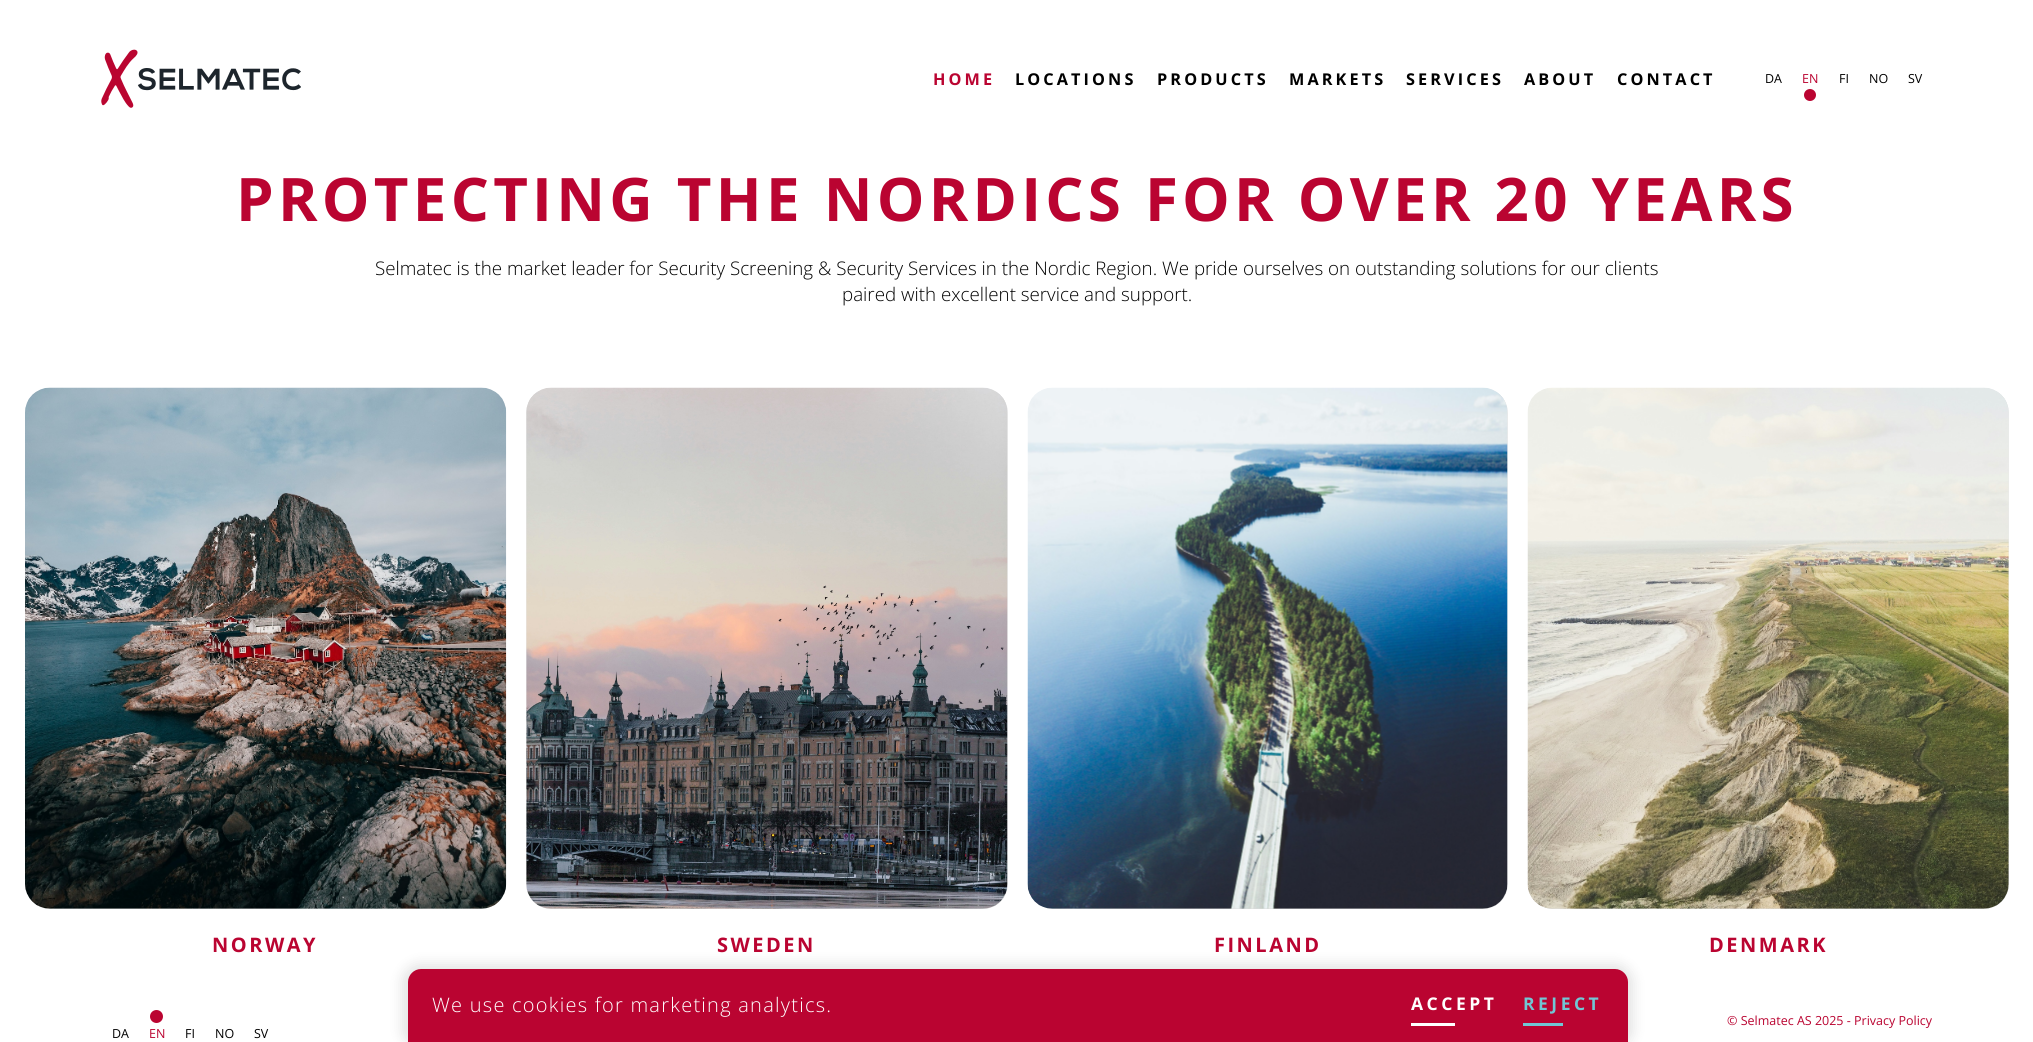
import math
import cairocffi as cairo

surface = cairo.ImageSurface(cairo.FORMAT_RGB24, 2033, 1042)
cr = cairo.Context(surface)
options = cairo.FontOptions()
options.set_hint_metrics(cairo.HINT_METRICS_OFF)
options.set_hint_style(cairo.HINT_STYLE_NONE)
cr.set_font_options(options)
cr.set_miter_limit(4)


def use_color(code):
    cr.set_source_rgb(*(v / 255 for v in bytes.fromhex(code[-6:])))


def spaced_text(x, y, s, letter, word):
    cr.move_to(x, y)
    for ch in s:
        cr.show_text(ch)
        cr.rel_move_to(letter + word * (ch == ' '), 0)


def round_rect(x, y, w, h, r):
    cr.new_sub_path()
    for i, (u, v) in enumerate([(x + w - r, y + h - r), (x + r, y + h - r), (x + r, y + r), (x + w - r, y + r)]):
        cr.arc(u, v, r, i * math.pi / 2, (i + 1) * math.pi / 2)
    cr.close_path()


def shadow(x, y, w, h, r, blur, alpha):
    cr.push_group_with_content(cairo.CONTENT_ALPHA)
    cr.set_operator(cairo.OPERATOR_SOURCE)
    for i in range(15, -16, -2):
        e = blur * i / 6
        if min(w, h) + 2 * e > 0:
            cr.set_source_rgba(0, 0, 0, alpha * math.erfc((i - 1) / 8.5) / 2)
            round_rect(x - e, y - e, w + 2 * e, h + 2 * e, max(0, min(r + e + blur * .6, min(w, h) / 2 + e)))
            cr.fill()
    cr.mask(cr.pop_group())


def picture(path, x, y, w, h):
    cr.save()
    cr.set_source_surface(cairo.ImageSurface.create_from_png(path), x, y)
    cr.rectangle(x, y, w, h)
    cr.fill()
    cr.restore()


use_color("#ffffff")
cr.paint()
picture("img1.png", 101, 49, 200, 59)
cr.select_font_face("Open Sans", cairo.FONT_SLANT_NORMAL, cairo.FONT_WEIGHT_BOLD)
cr.set_font_size(16.25)
use_color("#ba0431")
spaced_text(933, 85, "HOME", 3.1, 0)
use_color("#000000")
spaced_text(1015, 85, "LOCATIONS", 3.1, 0)
spaced_text(1157, 85, "PRODUCTS", 3.1, 0)
spaced_text(1289, 85, "MARKETS", 3.1, 0)
spaced_text(1406, 85, "SERVICES", 3.1, 0)
spaced_text(1524, 85, "ABOUT", 3.1, 0)
spaced_text(1617, 85, "CONTACT", 3.1, 0)
cr.select_font_face("Open Sans")
cr.set_font_size(12.5)
cr.move_to(1765, 83)
cr.show_text("DA")
use_color("#ba0431")
cr.move_to(1802, 83)
cr.show_text("EN")
cr.new_path()
cr.arc(1810, 95, 6, 0, 2 * math.pi)
cr.fill()
use_color("#000000")
cr.move_to(1839, 83)
cr.show_text("FI")
cr.move_to(1869, 83)
cr.show_text("NO")
cr.move_to(1908, 83)
cr.show_text("SV")
cr.select_font_face("Open Sans", cairo.FONT_SLANT_NORMAL, cairo.FONT_WEIGHT_BOLD)
cr.set_font_size(60)
use_color("#ba0431")
spaced_text(236, 221, "PROTECTING THE NORDICS FOR OVER 20 YEARS", 4.25, 0)
cr.select_font_face("Open Sans Light")
cr.set_font_size(18.75)
use_color("#000000")
cr.move_to(375, 275)
cr.show_text("Selmatec is the market leader for Security Screening & Security Services in the Nordic Region. We pride ourselves on outstanding solutions for our clients")
cr.move_to(842, 301)
cr.show_text("paired with excellent service and support.")
cr.save()
round_rect(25, 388, 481, 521, 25)
cr.clip()
use_color("#000000")
shadow(25, 391, 481, 522, 0, 4, 0.16)
cr.restore()
picture("img2.png", 25, 387, 482, 522)
cr.select_font_face("Open Sans", cairo.FONT_SLANT_NORMAL, cairo.FONT_WEIGHT_BOLD)
cr.set_font_size(20)
use_color("#ba0431")
spaced_text(212, 952, "NORWAY", 2.5, 0)
cr.save()
round_rect(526, 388, 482, 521, 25)
cr.clip()
use_color("#000000")
shadow(526, 391, 482, 522, 0, 4, 0.16)
cr.restore()
picture("img3.png", 526, 387, 482, 522)
spaced_text(717, 952, "SWEDEN", 2.5, 0)
cr.save()
round_rect(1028, 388, 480, 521, 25)
cr.clip()
use_color("#000000")
shadow(1028, 391, 480, 522, 0, 4, 0.16)
cr.restore()
picture("img4.png", 1027, 387, 481, 522)
spaced_text(1214, 952, "FINLAND", 2.5, 0)
cr.save()
round_rect(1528, 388, 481, 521, 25)
cr.clip()
use_color("#000000")
shadow(1528, 391, 481, 522, 0, 4, 0.16)
cr.restore()
picture("img5.png", 1527, 387, 482, 522)
spaced_text(1709, 952, "DENMARK", 2.5, 0)
use_color("#000000")
shadow(401, 963, 1233, 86, 19, 6, 0.1)
use_color("#ba0431")
cr.new_path()
cr.move_to(421, 969)
cr.line_to(1615, 969)
cr.curve_to(1622, 969, 1628, 975, 1628, 982)
cr.line_to(1628, 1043)
cr.line_to(408, 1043)
cr.line_to(408, 982)
cr.curve_to(408, 975, 414, 969, 421, 969)
cr.close_path()
cr.fill()
cr.select_font_face("Open Sans Light")
use_color("#ffffff")
spaced_text(432, 1012, "We use cookies for marketing analytics.", 1.25, 0)
cr.select_font_face("Open Sans", cairo.FONT_SLANT_NORMAL, cairo.FONT_WEIGHT_BOLD)
cr.set_font_size(17.5)
spaced_text(1411, 1010, "ACCEPT", 3.5, 0)
cr.rectangle(1411, 1023, 44, 3)
cr.fill()
use_color("#71c7d5")
spaced_text(1523, 1010, "REJECT", 3.5, 0)
cr.rectangle(1523, 1023, 40, 3)
cr.fill()
cr.select_font_face("Open Sans")
cr.set_font_size(12.5)
use_color("#ba0431")
cr.move_to(1727, 1025)
cr.show_text("© Selmatec AS 2025 - Privacy Policy")
use_color("#000000")
cr.move_to(112, 1038)
cr.show_text("DA")
use_color("#ba0431")
cr.new_path()
cr.arc(156.5, 1016.5, 6.5, 0, 2 * math.pi)
cr.fill()
cr.move_to(149, 1038)
cr.show_text("EN")
use_color("#000000")
cr.move_to(185, 1038)
cr.show_text("FI")
cr.move_to(215, 1038)
cr.show_text("NO")
cr.move_to(254, 1038)
cr.show_text("SV")
surface.write_to_png("result.png")
